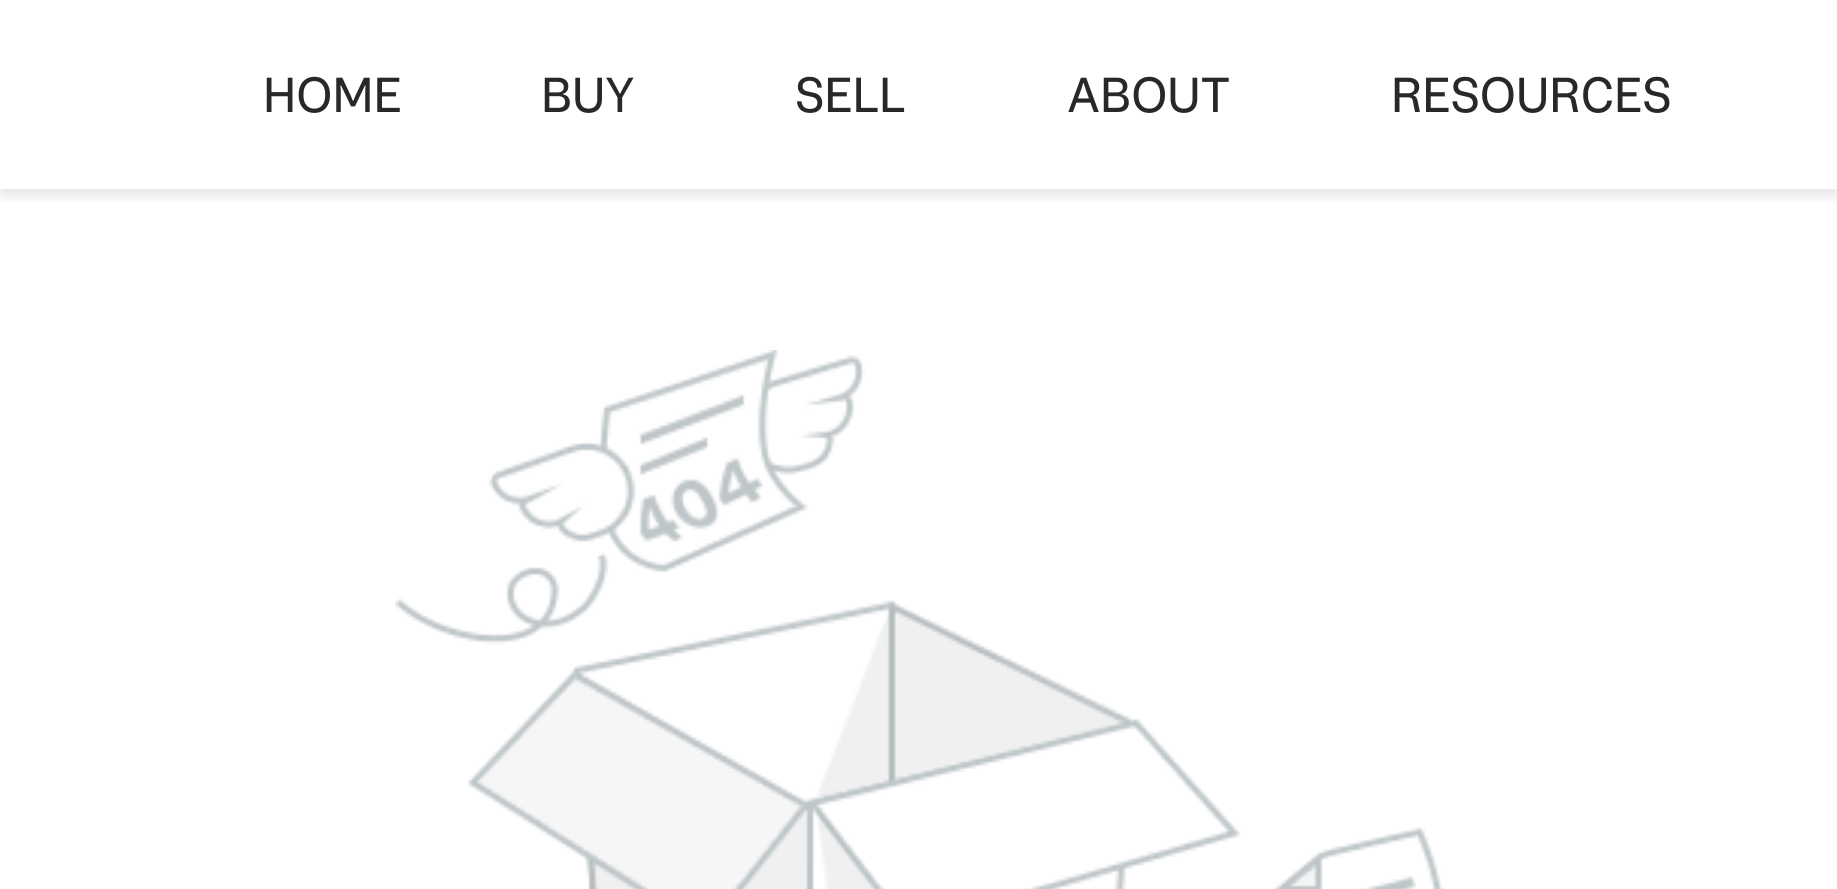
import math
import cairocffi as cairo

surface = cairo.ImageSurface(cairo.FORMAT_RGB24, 1837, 889)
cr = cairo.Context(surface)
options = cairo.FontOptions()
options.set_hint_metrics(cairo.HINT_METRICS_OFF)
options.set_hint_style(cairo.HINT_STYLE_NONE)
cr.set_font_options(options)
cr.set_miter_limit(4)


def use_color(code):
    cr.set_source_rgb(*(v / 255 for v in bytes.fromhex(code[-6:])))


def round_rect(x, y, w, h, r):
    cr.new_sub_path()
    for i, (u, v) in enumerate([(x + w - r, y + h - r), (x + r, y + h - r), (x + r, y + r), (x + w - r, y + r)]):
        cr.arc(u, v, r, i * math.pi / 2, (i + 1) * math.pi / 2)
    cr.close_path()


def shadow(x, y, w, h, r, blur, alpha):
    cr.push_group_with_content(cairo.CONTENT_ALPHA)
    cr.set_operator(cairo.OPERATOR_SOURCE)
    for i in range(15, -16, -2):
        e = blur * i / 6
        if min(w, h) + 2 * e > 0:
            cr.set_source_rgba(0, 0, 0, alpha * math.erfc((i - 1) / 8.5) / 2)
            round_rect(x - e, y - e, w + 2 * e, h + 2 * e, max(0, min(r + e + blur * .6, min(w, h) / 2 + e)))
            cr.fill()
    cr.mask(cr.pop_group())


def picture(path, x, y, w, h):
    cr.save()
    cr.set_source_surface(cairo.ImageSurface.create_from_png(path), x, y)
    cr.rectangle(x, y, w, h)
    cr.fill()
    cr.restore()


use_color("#ffffff")
cr.paint()
cr.save()
cr.rectangle(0, 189, 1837, 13)
cr.clip()
use_color("#000000")
shadow(0, 7, 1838, 189, 0, 7, 0.1)
cr.restore()
cr.select_font_face("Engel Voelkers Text")
cr.set_font_size(49)
use_color("#282828")
cr.move_to(263, 112)
cr.show_text("HOME")
cr.move_to(541, 112)
cr.show_text("BUY")
cr.move_to(795, 112)
cr.show_text("SELL")
cr.move_to(1067, 112)
cr.show_text("ABOUT")
cr.move_to(1391, 112)
cr.show_text("RESOURCES")
picture("img1.png", 395, 350, 1049, 539)
surface.write_to_png("result.png")
